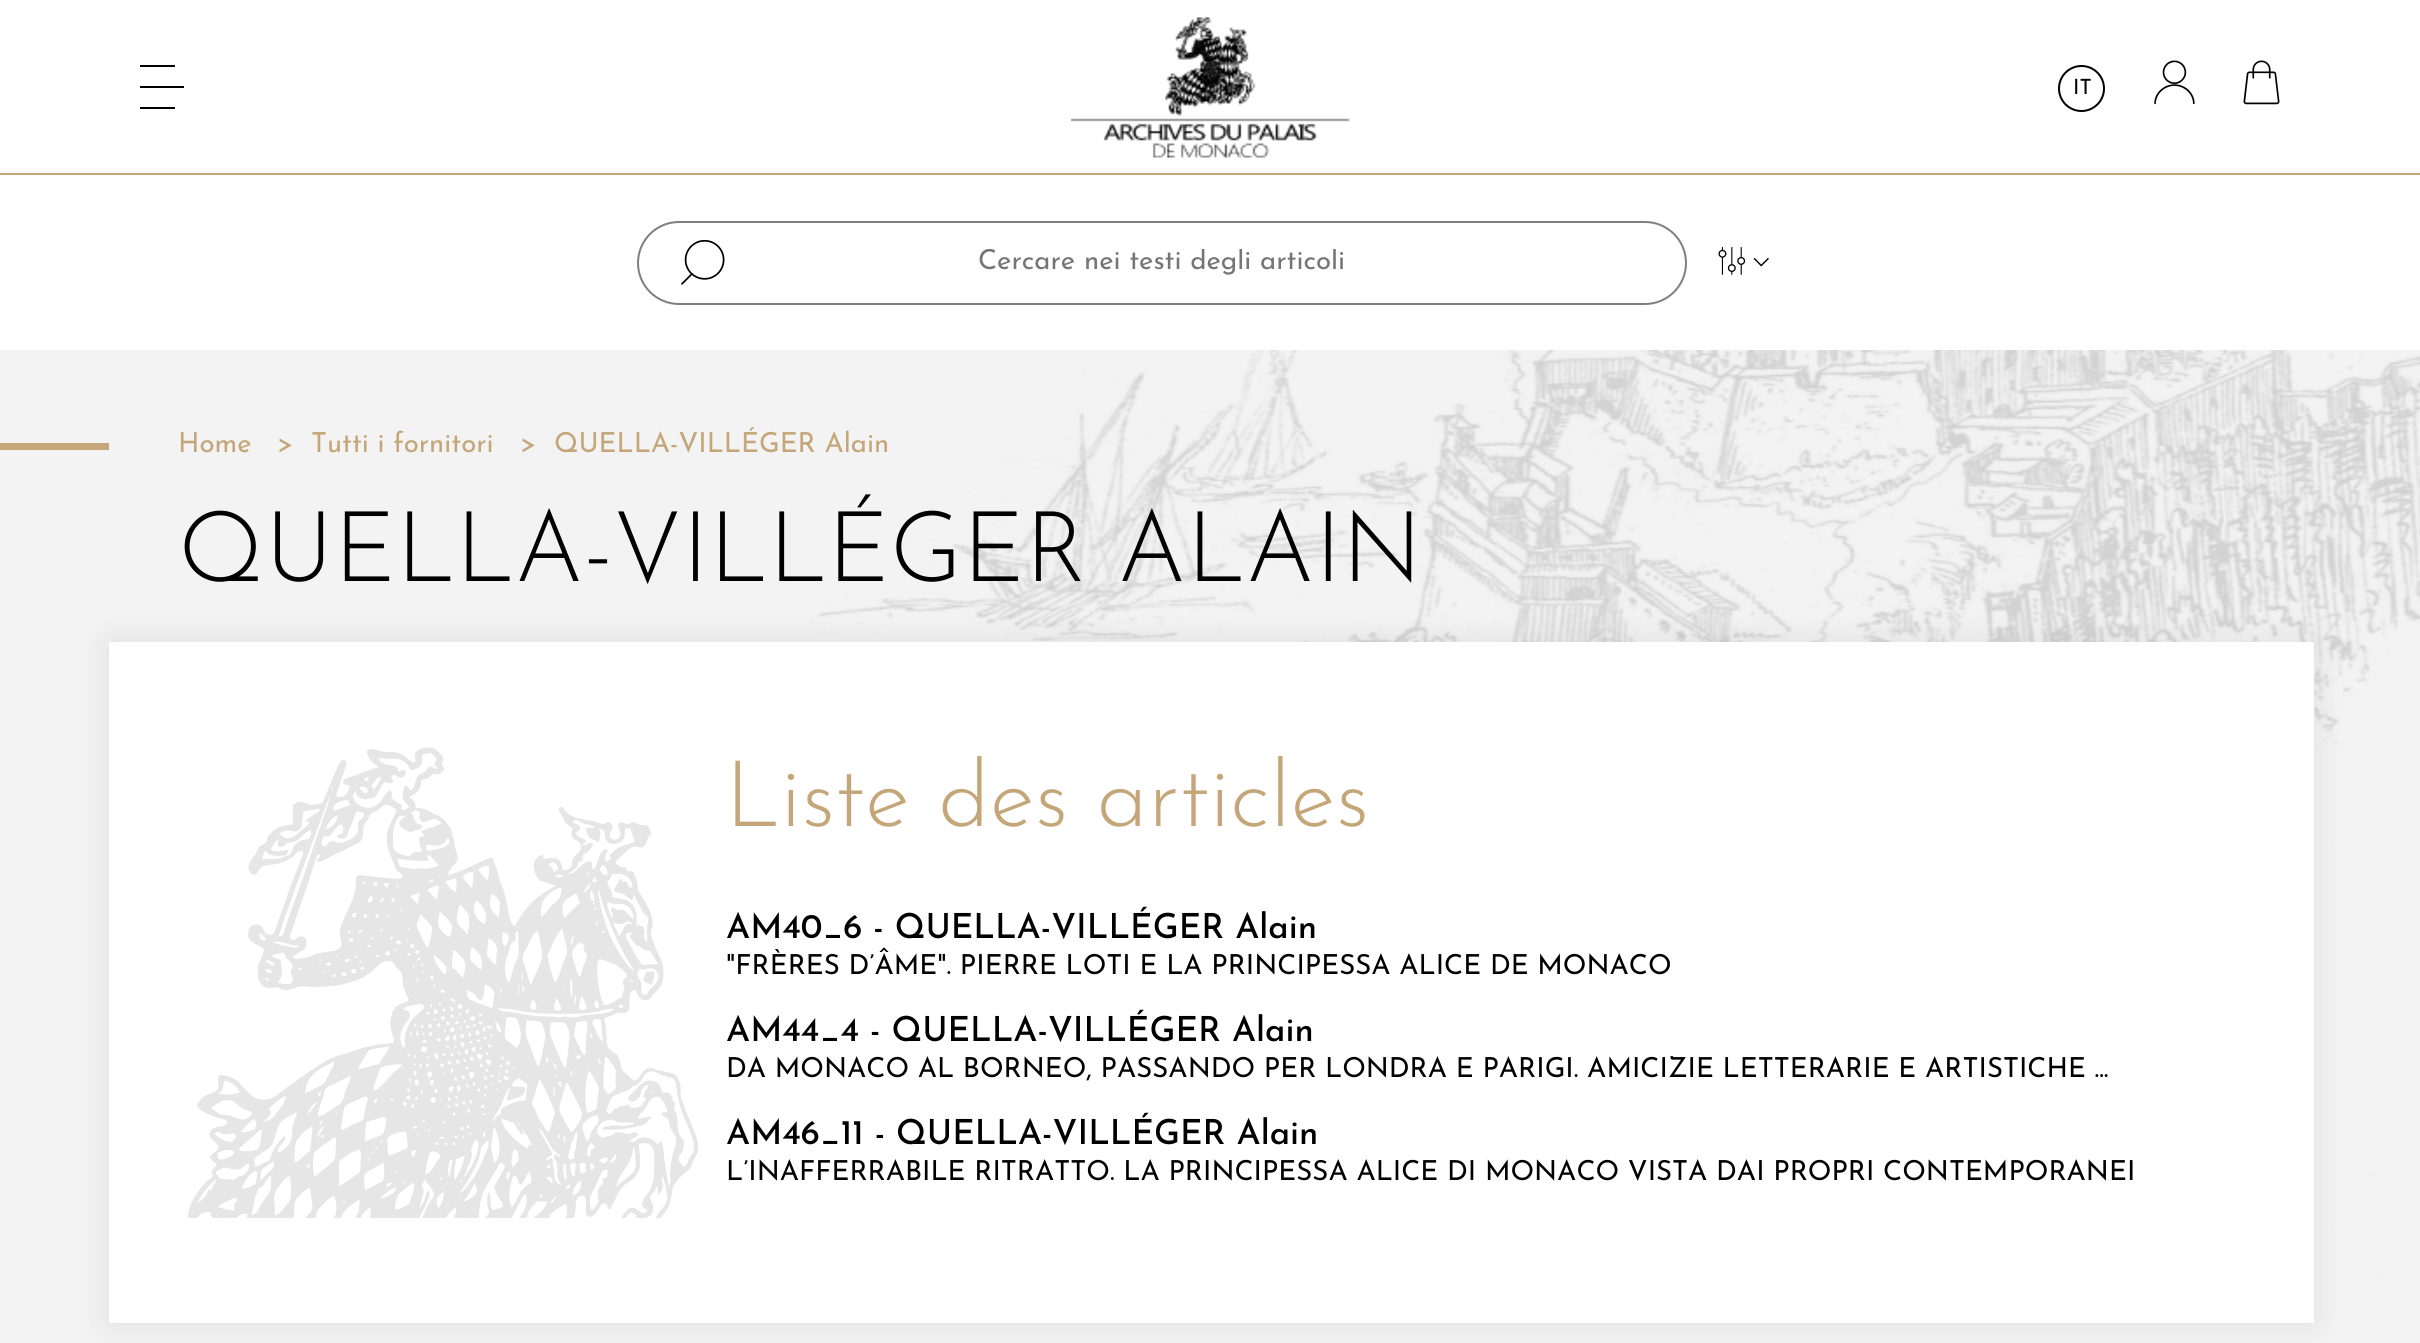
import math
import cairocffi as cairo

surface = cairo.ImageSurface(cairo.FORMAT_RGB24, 2420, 1343)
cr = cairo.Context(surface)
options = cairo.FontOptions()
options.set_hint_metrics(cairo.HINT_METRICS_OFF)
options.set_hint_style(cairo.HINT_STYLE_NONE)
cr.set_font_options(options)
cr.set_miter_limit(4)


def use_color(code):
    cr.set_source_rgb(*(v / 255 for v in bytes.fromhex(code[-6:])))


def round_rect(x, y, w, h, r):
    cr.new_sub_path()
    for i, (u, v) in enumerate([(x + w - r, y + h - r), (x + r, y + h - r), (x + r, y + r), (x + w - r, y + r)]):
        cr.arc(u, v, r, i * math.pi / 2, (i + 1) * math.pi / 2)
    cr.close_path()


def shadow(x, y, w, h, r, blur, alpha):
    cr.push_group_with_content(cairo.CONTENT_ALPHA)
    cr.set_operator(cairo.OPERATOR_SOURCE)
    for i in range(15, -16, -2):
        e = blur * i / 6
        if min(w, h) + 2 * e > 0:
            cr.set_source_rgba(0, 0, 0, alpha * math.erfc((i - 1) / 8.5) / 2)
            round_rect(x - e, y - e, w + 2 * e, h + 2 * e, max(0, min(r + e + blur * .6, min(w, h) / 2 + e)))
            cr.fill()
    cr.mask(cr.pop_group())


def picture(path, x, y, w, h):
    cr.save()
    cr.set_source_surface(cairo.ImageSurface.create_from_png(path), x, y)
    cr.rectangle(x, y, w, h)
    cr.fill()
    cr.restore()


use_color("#ffffff")
cr.paint()
use_color("#c4a679")
cr.rectangle(0, 173, 2420, 2)
cr.fill()
use_color("#000000")
cr.rectangle(140, 86, 44, 2)
cr.fill()
cr.rectangle(140, 65, 35, 2)
cr.fill()
cr.rectangle(140, 107, 35, 2)
cr.fill()
picture("img1.png", 1071, 17, 279, 141)
cr.arc(2081.5, 88.5, 22.5, 0, 2 * math.pi)
cr.stroke()
cr.select_font_face("Josefin Sans")
cr.set_font_size(21)
cr.move_to(2073, 94)
cr.show_text("IT")
picture("img2.png", 2154, 60, 41, 45)
picture("img3.png", 2243, 60, 37, 45)
picture("img4.png", 681, 240, 44, 45)
round_rect(638, 222, 1048, 82, 41)
use_color("#7f7f7f")
cr.stroke()
cr.save()
cr.rectangle(642, 249, 1040, 28)
cr.clip()
cr.set_font_size(27.55)
use_color("#757575")
cr.move_to(978, 269)
cr.show_text("Cercare nei testi degli articoli")
cr.restore()
picture("img5.png", 1718, 247, 28, 28)
picture("img6.png", 1753, 257, 16, 10)
picture("img7.png", 0, 350, 2420, 993)
use_color("#c4a679")
cr.rectangle(0, 443, 109, 7)
cr.fill()
cr.set_font_size(27.55)
cr.move_to(178, 452)
cr.show_text("Home")
cr.move_to(277, 452)
cr.show_text(">")
cr.move_to(311, 452)
cr.show_text("Tutti i fornitori")
cr.move_to(520, 452)
cr.show_text(">")
cr.move_to(554, 452)
cr.show_text("QUELLA-VILLÉGER Alain")
cr.select_font_face("Josefin Sans Light")
cr.set_font_size(98)
use_color("#000000")
cr.move_to(178, 581)
cr.show_text("QUELLA-VILLÉGER ALAIN")
use_color("#000000")
shadow(109, 642, 2205, 681, 0, 17.5, 0.08)
use_color("#ffffff")
cr.rectangle(109, 642, 2205, 681)
cr.fill()
picture("img8.png", 187, 747, 511, 471)
cr.set_font_size(92)
use_color("#c4a679")
cr.move_to(725, 826)
cr.show_text("Liste des articles")
cr.select_font_face("Josefin Sans Medium")
cr.set_font_size(34.5)
use_color("#000000")
cr.move_to(726, 938)
cr.show_text("AM40_6 - QUELLA-VILLÉGER Alain")
cr.select_font_face("Josefin Sans")
cr.set_font_size(27.55)
cr.move_to(726, 974)
cr.show_text("\"FRÈRES D’ÂME\". PIERRE LOTI E LA PRINCIPESSA ALICE DE MONACO")
cr.select_font_face("Josefin Sans Medium")
cr.set_font_size(34.5)
cr.move_to(726, 1041)
cr.show_text("AM44_4 - QUELLA-VILLÉGER Alain")
cr.select_font_face("Josefin Sans")
cr.set_font_size(27.55)
cr.move_to(726, 1077)
cr.show_text("DA MONACO AL BORNEO, PASSANDO PER LONDRA E PARIGI. AMICIZIE LETTERARIE E ARTISTICHE ...")
cr.select_font_face("Josefin Sans Medium")
cr.set_font_size(34.5)
cr.move_to(726, 1144)
cr.show_text("AM46_11 - QUELLA-VILLÉGER Alain")
cr.select_font_face("Josefin Sans")
cr.set_font_size(27.55)
cr.move_to(726, 1180)
cr.show_text("L’INAFFERRABILE RITRATTO. LA PRINCIPESSA ALICE DI MONACO VISTA DAI PROPRI CONTEMPORANEI")
surface.write_to_png("result.png")
